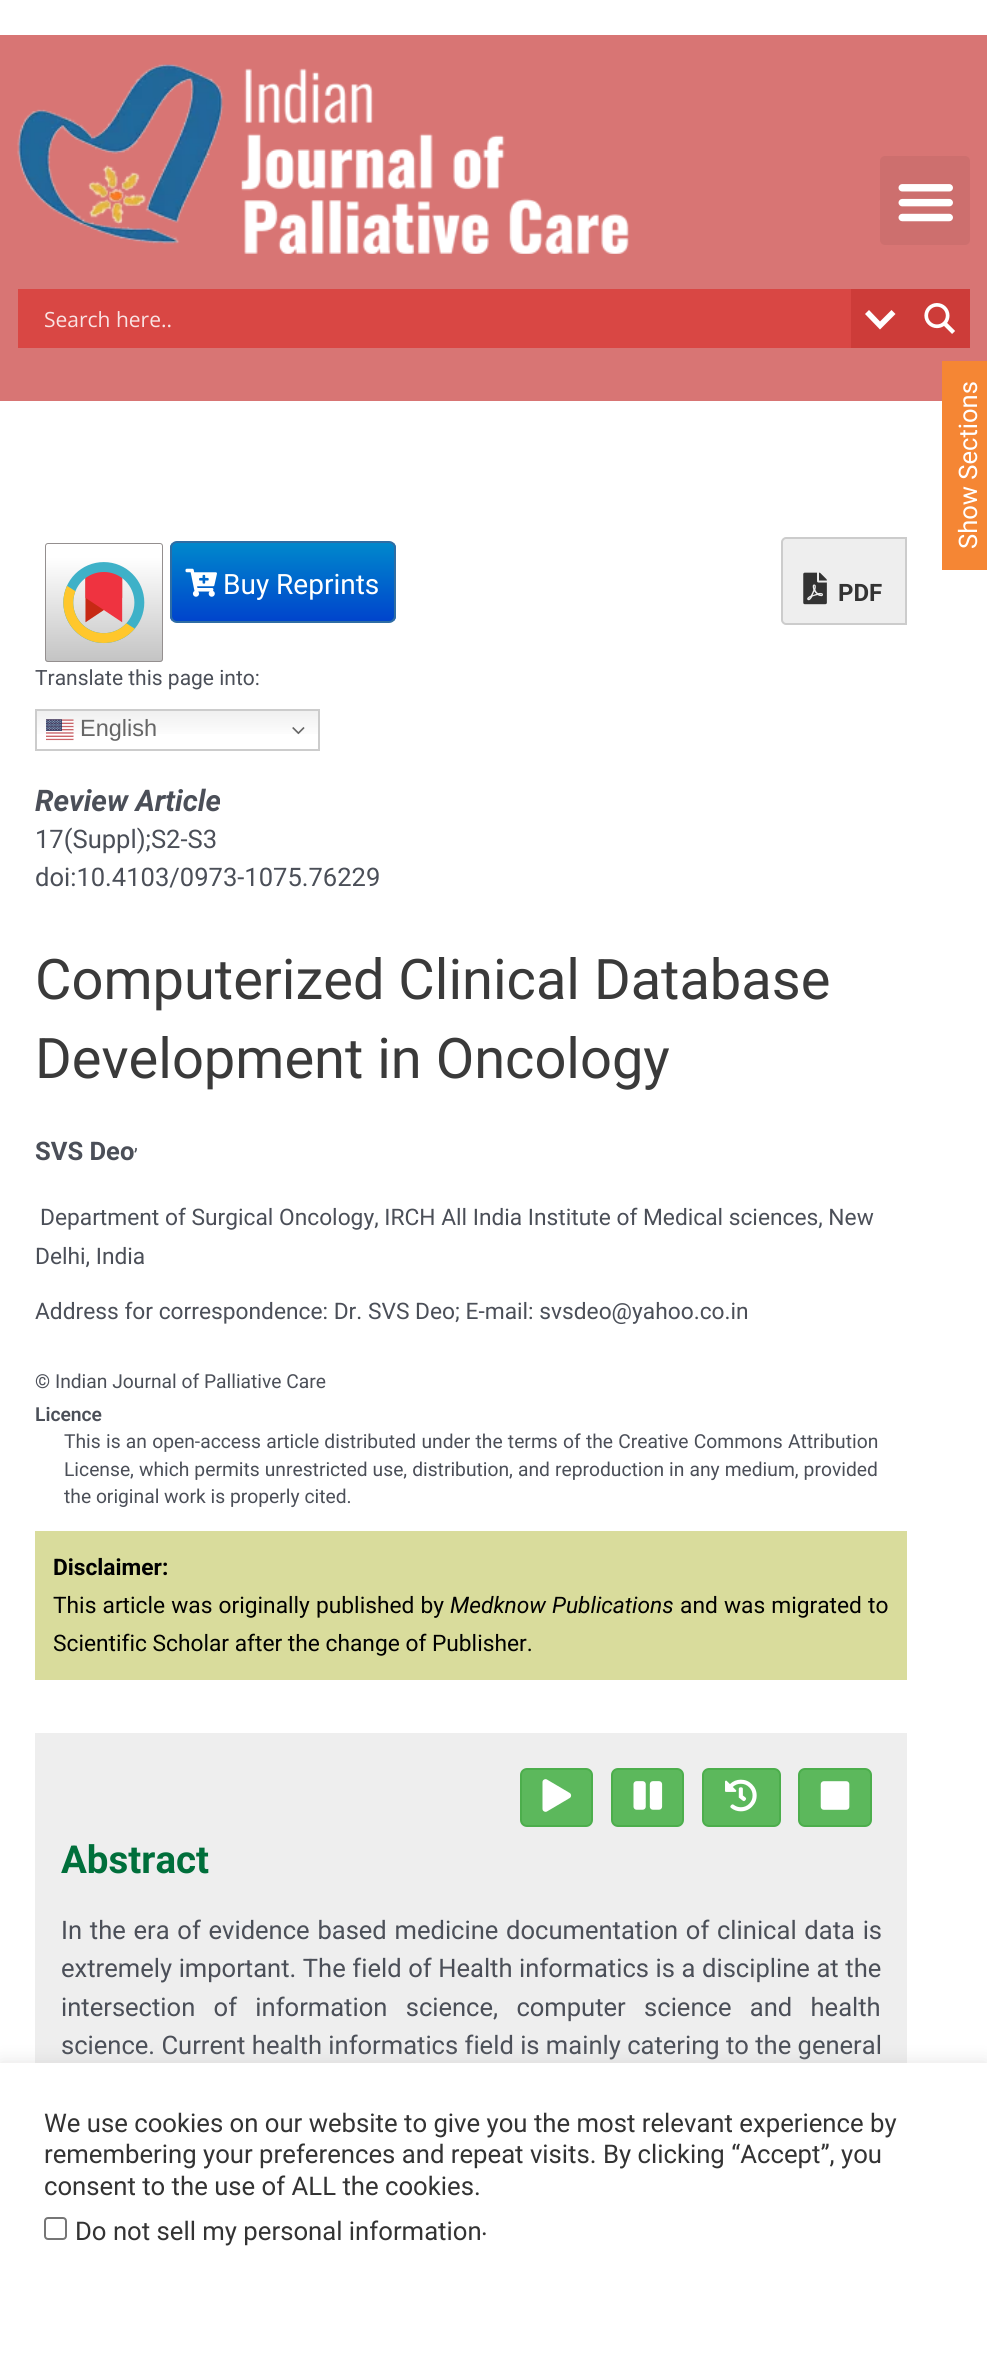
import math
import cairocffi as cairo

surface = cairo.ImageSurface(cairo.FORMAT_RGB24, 987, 2379)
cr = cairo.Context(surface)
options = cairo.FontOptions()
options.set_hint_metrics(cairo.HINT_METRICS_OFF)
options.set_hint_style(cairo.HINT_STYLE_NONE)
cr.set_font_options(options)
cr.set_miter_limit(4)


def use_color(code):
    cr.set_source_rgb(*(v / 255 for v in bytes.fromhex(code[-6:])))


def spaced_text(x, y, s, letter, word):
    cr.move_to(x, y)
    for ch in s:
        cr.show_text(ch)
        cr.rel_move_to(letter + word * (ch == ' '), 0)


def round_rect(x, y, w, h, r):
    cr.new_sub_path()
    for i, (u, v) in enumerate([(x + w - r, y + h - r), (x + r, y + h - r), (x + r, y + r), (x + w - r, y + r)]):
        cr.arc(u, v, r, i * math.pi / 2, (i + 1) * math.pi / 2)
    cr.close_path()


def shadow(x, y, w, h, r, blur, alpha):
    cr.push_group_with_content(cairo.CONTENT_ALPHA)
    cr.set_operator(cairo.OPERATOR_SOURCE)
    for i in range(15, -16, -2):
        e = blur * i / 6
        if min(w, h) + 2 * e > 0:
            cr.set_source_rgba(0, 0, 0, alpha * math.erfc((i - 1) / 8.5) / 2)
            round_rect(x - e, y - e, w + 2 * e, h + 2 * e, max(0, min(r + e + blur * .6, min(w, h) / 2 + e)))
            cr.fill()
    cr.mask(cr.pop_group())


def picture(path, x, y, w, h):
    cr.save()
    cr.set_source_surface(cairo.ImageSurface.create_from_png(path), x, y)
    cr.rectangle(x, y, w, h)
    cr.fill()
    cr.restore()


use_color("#ffffff")
cr.paint()
use_color("#d87574")
cr.rectangle(0, 35, 987, 366)
cr.fill()
picture("img1.png", 17, 64, 612, 190)
use_color("#cd6f6e")
round_rect(880, 156, 90, 89, 5)
cr.fill()
picture("img2.png", 898, 184, 55, 38)
use_color("#d94744")
cr.rectangle(18, 289, 833, 59)
cr.fill()
use_color("#cd3c39")
cr.rectangle(851, 289, 119, 59)
cr.fill()
use_color("#ffffff")
cr.new_path()
cr.move_to(891.5, 310)
cr.line_to(895.5, 314)
cr.line_to(880, 329.5)
cr.line_to(865, 314)
cr.line_to(869, 310)
cr.line_to(880, 321.5)
cr.close_path()
cr.fill()
cr.select_font_face("Open Sans")
cr.set_font_size(21)
use_color("#f9e3e3")
cr.move_to(44, 327)
cr.show_text("Search here..")
picture("img3.png", 924, 303, 31, 31)
use_color("#f58634")
cr.rectangle(942, 361, 45, 209)
cr.fill()
cr.select_font_face("Roboto")
cr.set_font_size(25.55)
use_color("#ffffff")
cr.save()
cr.translate(977, 549)
cr.rotate(-90 * math.pi / 180)
cr.move_to(0, 0)
cr.show_text("Show Sections")
cr.restore()
picture("img4.png", 45, 543, 118, 119)
cr.save()
round_rect(170, 541, 226, 82, 7)
cr.clip()
gradient = cairo.LinearGradient(283, 543, 283, 621)
gradient.add_color_stop_rgba(0, 0, 0.533, 0.8, 1)
gradient.add_color_stop_rgba(1, 0, 0.267, 0.8, 1)
cr.set_source(gradient)
cr.rectangle(170, 543, 226, 78)
cr.fill()
cr.restore()
round_rect(171, 542, 224, 80, 6)
use_color("#2e6da4")
cr.stroke()
picture("img5.png", 185, 568, 32, 29)
cr.set_font_size(28)
use_color("#ffffff")
cr.move_to(223, 594)
cr.show_text("Buy Reprints")
use_color("#eeeeee")
cr.new_path()
cr.move_to(786, 538)
cr.line_to(906, 538)
cr.line_to(906, 624)
cr.line_to(786, 624)
cr.curve_to(784, 624, 782, 622, 782, 620)
cr.line_to(782, 542)
cr.curve_to(782, 540, 784, 538, 786, 538)
cr.close_path()
cr.fill_preserve()
use_color("#cccccc")
cr.stroke()
picture("img6.png", 803, 572, 24, 33)
cr.select_font_face("Roboto", cairo.FONT_SLANT_NORMAL, cairo.FONT_WEIGHT_BOLD)
cr.set_font_size(24)
use_color("#333333")
cr.move_to(838, 601)
cr.show_text("PDF")
cr.select_font_face("Roboto")
cr.set_font_size(21)
use_color("#4b4f58")
cr.move_to(35, 685)
cr.show_text("Translate this page into:")
gradient = cairo.LinearGradient(178, 709, 178, 751)
gradient.add_color_stop_rgba(0, 0.937, 0.937, 0.937, 1)
gradient.add_color_stop_rgba(0.7, 1, 1, 1, 1)
cr.set_source(gradient)
cr.rectangle(37, 711, 281, 23)
cr.fill()
cr.rectangle(36, 710, 283, 40)
use_color("#cccccc")
cr.stroke()
picture("img7.png", 46, 719, 28, 22)
cr.select_font_face("Liberation Sans")
cr.set_font_size(23.5)
use_color("#666666")
cr.move_to(80, 736)
cr.show_text("English")
picture("img8.png", 292, 727, 13, 8)
cr.select_font_face("Roboto", cairo.FONT_SLANT_ITALIC, cairo.FONT_WEIGHT_BOLD)
cr.set_font_size(29.75)
use_color("#4b4f58")
cr.move_to(35, 811)
cr.show_text("Review Article")
cr.select_font_face("Roboto")
cr.set_font_size(25.55)
cr.move_to(35, 848)
cr.show_text("17(Suppl);S2-S3")
cr.move_to(35, 886)
cr.show_text("doi:10.4103/0973-1075.76229")
cr.set_font_size(56)
use_color("#3a3a3a")
cr.move_to(35, 999)
cr.show_text("Computerized Clinical Database")
cr.move_to(35, 1078)
cr.show_text("Development in Oncology")
cr.select_font_face("Roboto", cairo.FONT_SLANT_NORMAL, cairo.FONT_WEIGHT_BOLD)
cr.set_font_size(25.55)
use_color("#4b4f58")
cr.move_to(35, 1160)
cr.show_text("SVS Deo")
cr.select_font_face("Roboto")
cr.set_font_size(19)
cr.move_to(134, 1150)
cr.show_text(",")
cr.set_font_size(22.75)
cr.move_to(40, 1225)
cr.show_text("Department of Surgical Oncology, IRCH All India Institute of Medical sciences, New")
cr.move_to(35, 1264)
cr.show_text("Delhi, India")
cr.move_to(35, 1319)
cr.show_text("Address for correspondence: Dr. SVS Deo; E-mail: svsdeo@yahoo.co.in")
cr.set_font_size(19.25)
cr.move_to(35, 1388)
cr.show_text("© Indian Journal of Palliative Care")
cr.select_font_face("Roboto SemiBold")
cr.move_to(35, 1421)
cr.show_text("Licence")
cr.select_font_face("Roboto")
spaced_text(64, 1448, "This is an open-access article distributed under the terms of the Creative Commons Attribution", 0, 0.5)
spaced_text(64, 1476, "License, which permits unrestricted use, distribution, and reproduction in any medium, provided", 0, 0.25)
cr.move_to(64, 1503)
cr.show_text("the original work is properly cited.")
use_color("#d9dc9c")
cr.rectangle(35, 1531, 872, 149)
cr.fill()
cr.select_font_face("Roboto", cairo.FONT_SLANT_NORMAL, cairo.FONT_WEIGHT_BOLD)
cr.set_font_size(22.75)
use_color("#000000")
cr.move_to(53, 1575)
cr.show_text("Disclaimer:")
cr.select_font_face("Roboto")
spaced_text(53, 1613, "This article was originally published by", 0, 0.5)
cr.select_font_face("Roboto", cairo.FONT_SLANT_ITALIC)
spaced_text(450, 1613, "Medknow Publications", 0, 0.5)
cr.select_font_face("Roboto")
spaced_text(680, 1613, "and was migrated to", 0, 0.5)
cr.move_to(53, 1651)
cr.show_text("Scientific Scholar after the change of Publisher.")
use_color("#eeeeee")
cr.rectangle(35, 1733, 872, 330)
cr.fill()
use_color("#5cb85c")
round_rect(521, 1769, 71, 57, 6)
cr.fill_preserve()
use_color("#4cae4c")
cr.stroke()
picture("img9.png", 542, 1779, 30, 33)
use_color("#5cb85c")
round_rect(612, 1769, 71, 57, 6)
cr.fill_preserve()
use_color("#4cae4c")
cr.stroke()
picture("img10.png", 633, 1781, 30, 29)
use_color("#5cb85c")
round_rect(703, 1769, 77, 57, 6)
cr.fill_preserve()
use_color("#4cae4c")
cr.stroke()
picture("img11.png", 725, 1779, 32, 33)
use_color("#5cb85c")
round_rect(799, 1769, 72, 57, 6)
cr.fill_preserve()
use_color("#4cae4c")
cr.stroke()
picture("img12.png", 820, 1781, 30, 29)
cr.select_font_face("Roboto", cairo.FONT_SLANT_NORMAL, cairo.FONT_WEIGHT_BOLD)
cr.set_font_size(38.5)
use_color("#006f3b")
cr.move_to(61, 1873)
cr.show_text("Abstract")
cr.select_font_face("Roboto")
cr.set_font_size(25.55)
use_color("#4b4f58")
spaced_text(61, 1939, "In the era of evidence based medicine documentation of clinical data is", 0, 1.4)
spaced_text(61, 1977, "extremely important. The field of Health informatics is a discipline at the", 0, 0.25)
spaced_text(61, 2016, "intersection of information science, computer science and health", 0, 12)
cr.move_to(61, 2054)
cr.show_text("science. Current health informatics field is mainly catering to the general")
use_color("#acabab")
shadow(0, 2062, 987, 316, 0, 9, 0.3)
use_color("#ffffff")
cr.rectangle(0, 2063, 987, 316)
cr.fill()
cr.set_font_size(25.7)
use_color("#333333")
cr.move_to(44, 2132)
cr.show_text("We use cookies on our website to give you the most relevant experience by")
cr.move_to(44, 2163)
cr.show_text("remembering your preferences and repeat visits. By clicking “Accept”, you")
cr.move_to(44, 2195)
cr.show_text("consent to the use of ALL the cookies.")
round_rect(45, 2218, 21, 21, 3)
use_color("#767676")
cr.stroke()
use_color("#333333")
cr.move_to(75, 2240)
cr.show_text("Do not sell my personal information")
cr.move_to(481, 2235)
cr.show_text(".")
surface.write_to_png("result.png")
